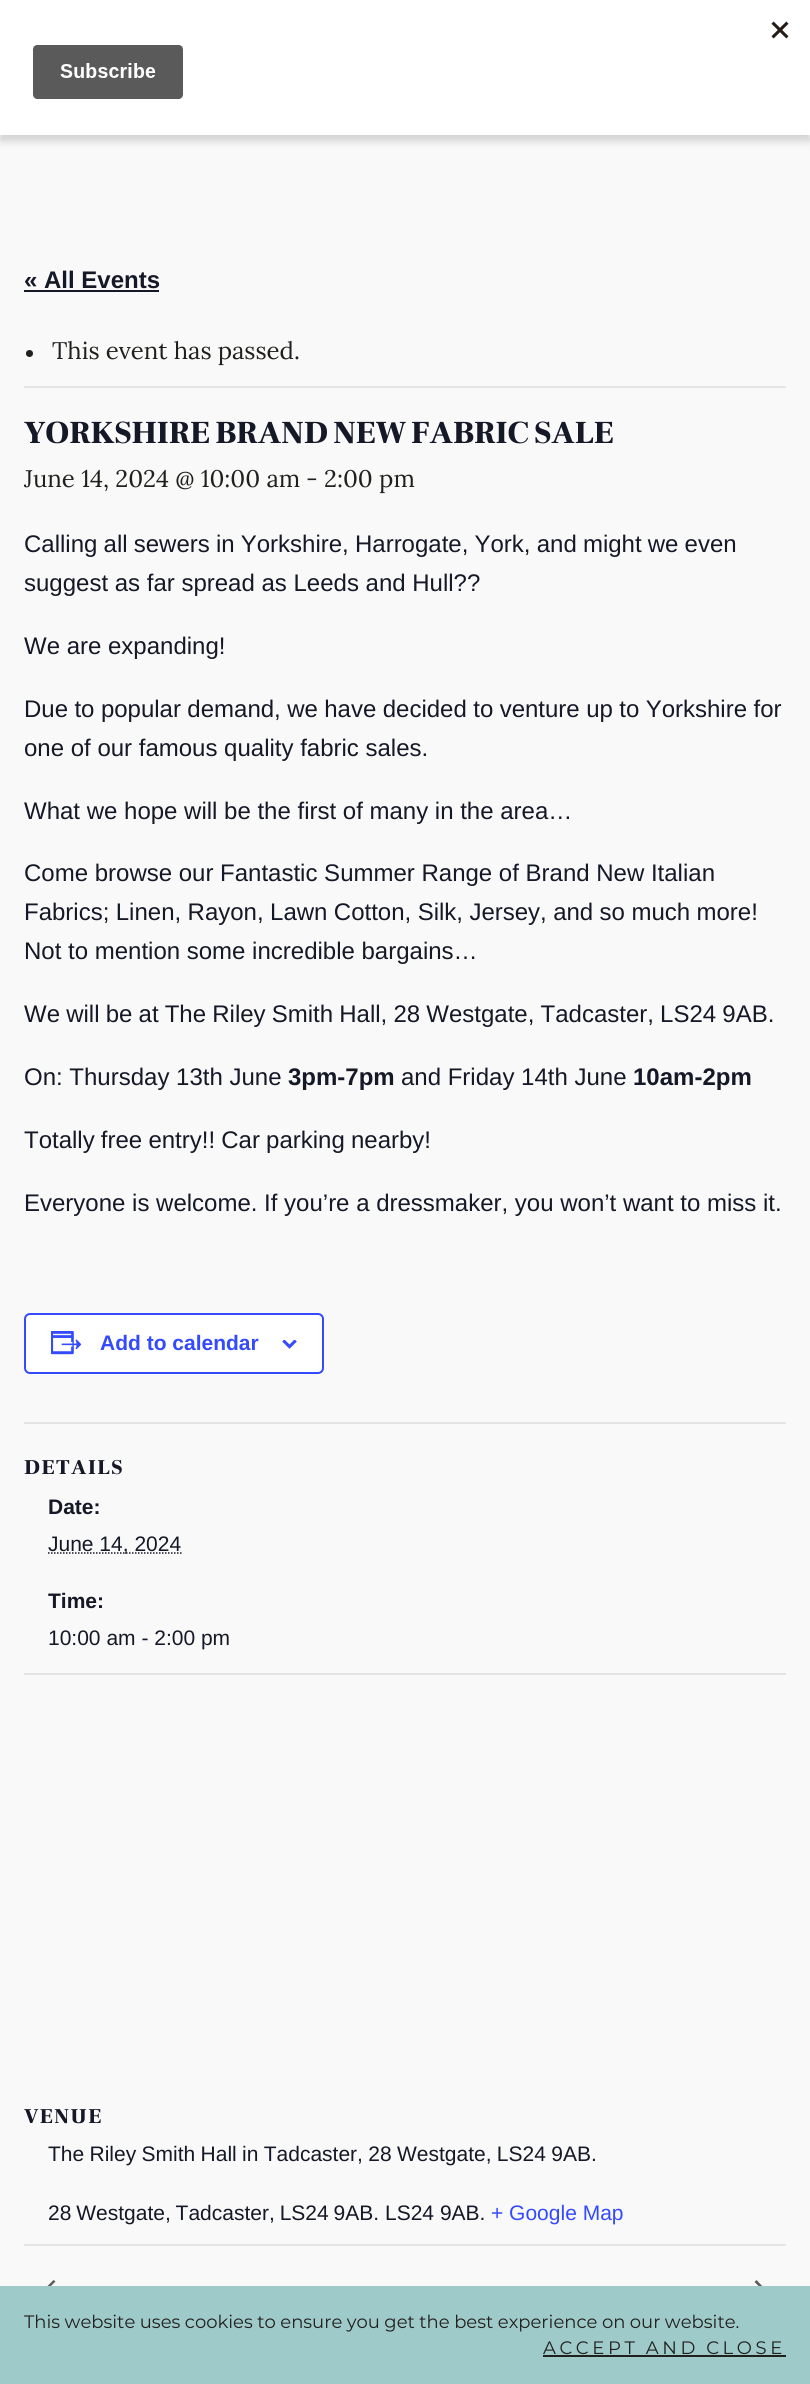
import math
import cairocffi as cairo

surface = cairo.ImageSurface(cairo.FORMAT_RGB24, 810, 2384)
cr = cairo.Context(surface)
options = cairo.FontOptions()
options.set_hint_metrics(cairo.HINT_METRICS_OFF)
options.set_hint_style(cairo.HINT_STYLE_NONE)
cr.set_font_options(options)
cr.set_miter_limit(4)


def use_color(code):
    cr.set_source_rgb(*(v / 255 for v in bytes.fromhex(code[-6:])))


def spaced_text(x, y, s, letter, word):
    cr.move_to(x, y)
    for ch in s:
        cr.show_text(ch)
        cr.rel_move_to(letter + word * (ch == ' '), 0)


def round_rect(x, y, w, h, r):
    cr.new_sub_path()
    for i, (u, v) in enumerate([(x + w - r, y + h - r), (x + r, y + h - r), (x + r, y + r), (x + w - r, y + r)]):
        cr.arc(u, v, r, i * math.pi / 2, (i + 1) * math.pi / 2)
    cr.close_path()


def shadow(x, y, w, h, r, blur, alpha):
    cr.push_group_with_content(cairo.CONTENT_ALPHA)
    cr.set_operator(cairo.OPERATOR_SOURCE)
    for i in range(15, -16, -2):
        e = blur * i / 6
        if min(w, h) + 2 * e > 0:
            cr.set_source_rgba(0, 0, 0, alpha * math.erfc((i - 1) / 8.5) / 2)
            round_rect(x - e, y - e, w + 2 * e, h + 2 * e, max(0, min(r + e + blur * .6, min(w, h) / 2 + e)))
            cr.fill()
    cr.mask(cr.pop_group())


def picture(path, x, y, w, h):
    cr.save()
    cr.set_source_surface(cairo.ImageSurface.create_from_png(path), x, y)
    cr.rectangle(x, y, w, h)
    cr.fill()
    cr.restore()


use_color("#f9f9f9")
cr.paint()
use_color("#ffffff")
cr.rectangle(0, 135, 810, 3)
cr.fill()
use_color("#000000")
shadow(0, 5, 810, 135, 0, 4.5, 0.2)
use_color("#ffffff")
cr.rectangle(0, 0, 810, 135)
cr.fill()
picture("img1.png", 32, 21, 757, 78)
cr.select_font_face("Liberation Sans", cairo.FONT_SLANT_NORMAL, cairo.FONT_WEIGHT_BOLD)
cr.set_font_size(24)
use_color("#141827")
cr.move_to(24, 288)
cr.show_text("« All Events")
cr.rectangle(24, 290, 135, 2)
cr.fill()
use_color("#e4e4e4")
cr.rectangle(24, 386, 762, 2)
cr.fill()
use_color("#21201d")
cr.arc(29.5, 353.5, 3.5, 0, 2 * math.pi)
cr.fill()
cr.select_font_face("Lora")
spaced_text(52, 359, "This event has passed.", 0, -0.25)
cr.select_font_face("Frank Ruhl Libre Black")
cr.set_font_size(32)
use_color("#141827")
spaced_text(24, 443, "YORKSHIRE BRAND NEW FABRIC SALE", 0, -1.5)
cr.select_font_face("Lora")
cr.set_font_size(24)
use_color("#21201d")
cr.move_to(24, 487)
cr.show_text("June 14, 2024 @ 10:00 am")
cr.move_to(306, 487)
cr.show_text("- 2:00 pm")
cr.select_font_face("Liberation Sans")
use_color("#141827")
spaced_text(24, 552, "Calling all sewers in Yorkshire, Harrogate, York, and might we even", 0, -0.5)
cr.move_to(24, 591)
cr.show_text("suggest as far spread as Leeds and Hull??")
cr.move_to(24, 654)
cr.show_text("We are expanding!")
spaced_text(24, 717, "Due to popular demand, we have decided to venture up to Yorkshire for", 0, -0.25)
cr.move_to(24, 756)
cr.show_text("one of our famous quality fabric sales.")
cr.move_to(24, 819)
cr.show_text("What we hope will be the first of many in the area…")
cr.move_to(24, 881)
cr.show_text("Come browse our Fantastic Summer Range of Brand New Italian")
spaced_text(24, 920, "Fabrics; Linen, Rayon, Lawn Cotton, Silk, Jersey, and so much more!", 0, -0.25)
cr.move_to(24, 959)
cr.show_text("Not to mention some incredible bargains…")
spaced_text(24, 1022, "We will be at The Riley Smith Hall, 28 Westgate, Tadcaster, LS24 9AB.", 0, -0.5)
cr.move_to(24, 1085)
cr.show_text("On: Thursday 13th June")
cr.select_font_face("Liberation Sans", cairo.FONT_SLANT_NORMAL, cairo.FONT_WEIGHT_BOLD)
cr.move_to(288, 1085)
cr.show_text("3pm-7pm")
cr.select_font_face("Liberation Sans")
cr.move_to(401, 1085)
cr.show_text("and Friday 14th June")
cr.select_font_face("Liberation Sans", cairo.FONT_SLANT_NORMAL, cairo.FONT_WEIGHT_BOLD)
cr.move_to(633, 1085)
cr.show_text("10am-2pm")
cr.select_font_face("Liberation Sans")
spaced_text(24, 1148, "Totally free entry!! Car parking nearby!", 0, -0.5)
cr.move_to(24, 1211)
cr.show_text("Everyone is welcome. If you’re a dressmaker, you won’t want to miss it.")
use_color("#ffffff")
round_rect(25, 1314, 298, 59, 5)
cr.fill_preserve()
use_color("#334aff")
cr.stroke()
picture("img2.png", 51, 1331, 31, 24)
cr.select_font_face("Liberation Sans", cairo.FONT_SLANT_NORMAL, cairo.FONT_WEIGHT_BOLD)
cr.set_font_size(21)
cr.move_to(100, 1350)
cr.show_text("Add to calendar")
picture("img3.png", 282, 1340, 15, 9)
use_color("#e4e4e4")
cr.rectangle(24, 1422, 762, 2)
cr.fill()
cr.select_font_face("Frank Ruhl Libre Black")
use_color("#141827")
spaced_text(24, 1474, "DETAILS", 1.5, 0)
cr.select_font_face("Liberation Sans", cairo.FONT_SLANT_NORMAL, cairo.FONT_WEIGHT_BOLD)
cr.move_to(48, 1514)
cr.show_text("Date:")
cr.new_path()
cr.move_to(48, 1553)
cr.line_to(181.5, 1553)
cr.set_line_width(1.5)
cr.set_dash([1.5, 1.5])
cr.stroke()
cr.select_font_face("Liberation Sans")
cr.move_to(48, 1551)
cr.show_text("June 14, 2024")
cr.select_font_face("Liberation Sans", cairo.FONT_SLANT_NORMAL, cairo.FONT_WEIGHT_BOLD)
cr.move_to(48, 1608)
cr.show_text("Time:")
cr.select_font_face("Liberation Sans")
cr.move_to(48, 1645)
cr.show_text("10:00 am - 2:00 pm")
use_color("#e4e4e4")
cr.rectangle(24, 1673, 762, 2)
cr.fill()
cr.select_font_face("Frank Ruhl Libre Black")
use_color("#141827")
spaced_text(24, 2123, "VENUE", 1.5, 0)
cr.select_font_face("Liberation Sans")
spaced_text(48, 2161, "The Riley Smith Hall in Tadcaster, 28 Westgate, LS24 9AB.", 0, -0.5)
spaced_text(48, 2220, "28 Westgate, Tadcaster, LS24 9AB.", 0, -1)
cr.move_to(385, 2220)
cr.show_text("LS24 9AB.")
use_color("#334aff")
cr.move_to(491, 2220)
cr.show_text("+ Google Map")
use_color("#e4e4e4")
cr.rectangle(24, 2244, 762, 2)
cr.fill()
use_color("#5d5d5d")
cr.new_path()
cr.move_to(55.5, 2295.5)
cr.line_to(53.5, 2297.5)
cr.line_to(45, 2288.5)
cr.line_to(53.5, 2280)
cr.line_to(55.5, 2281.5)
cr.line_to(48.5, 2288.5)
cr.close_path()
cr.fill()
cr.new_path()
cr.move_to(754.5, 2282)
cr.line_to(756.5, 2280)
cr.line_to(765, 2289)
cr.line_to(756.5, 2297.5)
cr.line_to(754.5, 2296)
cr.line_to(761.5, 2289)
cr.close_path()
cr.fill()
use_color("#9fcaca")
cr.rectangle(0, 2286, 810, 98)
cr.fill()
cr.select_font_face("Montserrat")
cr.set_font_size(18)
use_color("#21201d")
spaced_text(24, 2328, "This website uses cookies to ensure you get the best experience on our website.", 0, -0.25)
spaced_text(543, 2354, "ACCEPT AND CLOSE", 3.6, -1)
cr.rectangle(543, 2355, 243, 2)
cr.fill()
surface.write_to_png("result.png")
